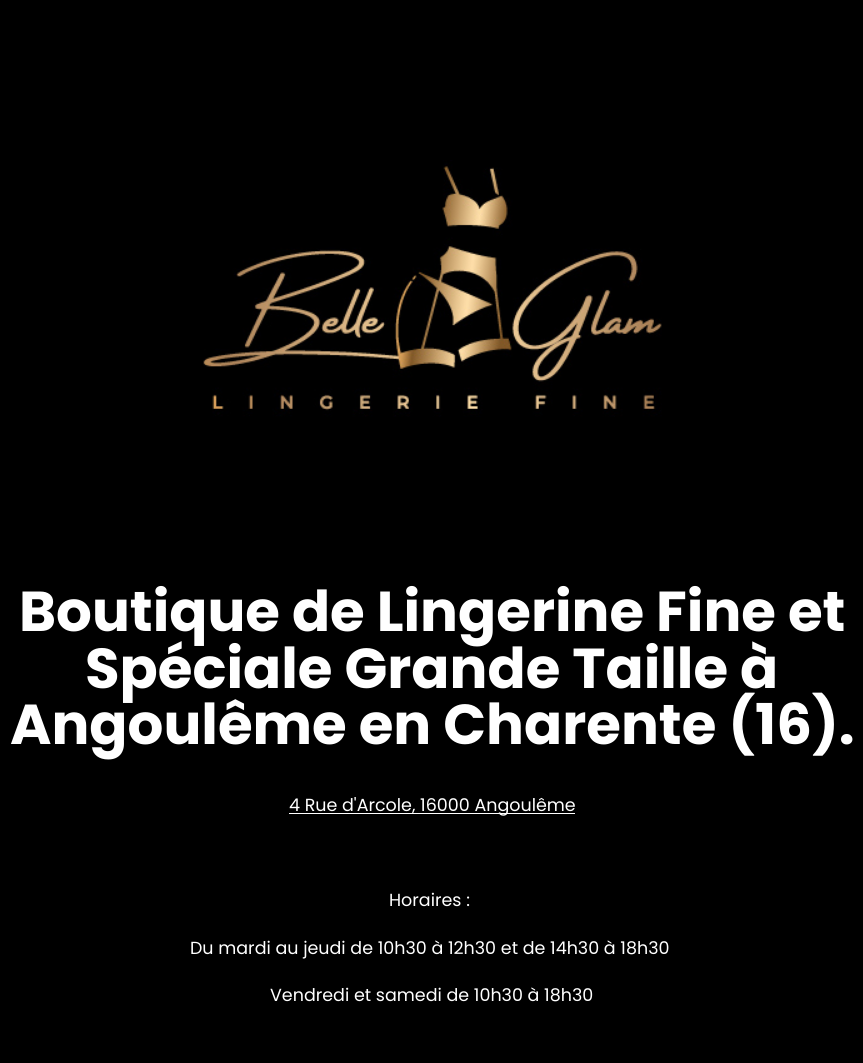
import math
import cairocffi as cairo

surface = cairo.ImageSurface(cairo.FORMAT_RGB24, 863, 1063)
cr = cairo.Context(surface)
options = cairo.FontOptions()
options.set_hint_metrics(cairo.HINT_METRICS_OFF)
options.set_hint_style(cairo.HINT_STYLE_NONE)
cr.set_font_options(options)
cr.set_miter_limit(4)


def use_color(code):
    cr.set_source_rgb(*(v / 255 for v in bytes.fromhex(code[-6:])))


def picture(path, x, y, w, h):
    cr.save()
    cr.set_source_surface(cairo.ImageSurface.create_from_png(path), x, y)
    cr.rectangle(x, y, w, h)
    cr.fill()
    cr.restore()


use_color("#000000")
cr.paint()
picture("img1.png", 203, 160, 459, 257)
cr.select_font_face("Poppins", cairo.FONT_SLANT_NORMAL, cairo.FONT_WEIGHT_BOLD)
cr.set_font_size(56.25)
use_color("#ffffff")
cr.move_to(19, 631)
cr.show_text("Boutique de Lingerine Fine et")
cr.move_to(85, 688)
cr.show_text("Spéciale Grande Taille à")
cr.move_to(10, 744)
cr.show_text("Angoulême en Charente (16).")
cr.rectangle(289, 813, 286, 1)
cr.fill()
cr.select_font_face("Poppins")
cr.set_font_size(17.5)
cr.move_to(289, 811)
cr.show_text("4 Rue d'Arcole, 16000 Angoulême")
cr.move_to(389, 906)
cr.show_text("Horaires :")
cr.move_to(190, 954)
cr.show_text("Du mardi au jeudi de 10h30 à 12h30 et de 14h30 à 18h30")
cr.move_to(270, 1001)
cr.show_text("Vendredi et samedi de 10h30 à 18h30")
surface.write_to_png("result.png")
